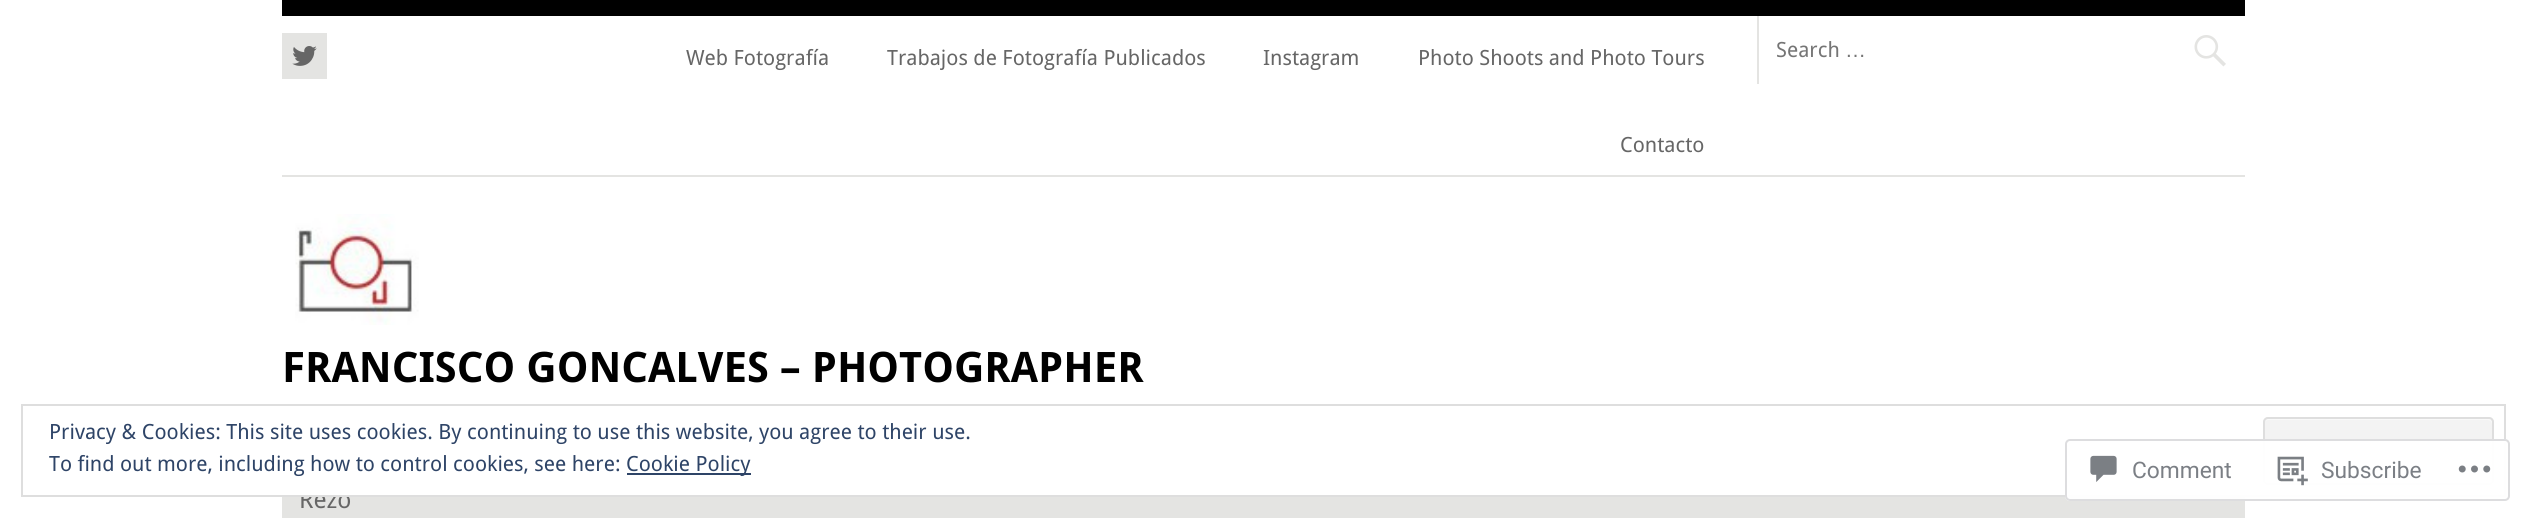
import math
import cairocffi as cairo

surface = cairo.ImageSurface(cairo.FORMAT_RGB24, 2527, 518)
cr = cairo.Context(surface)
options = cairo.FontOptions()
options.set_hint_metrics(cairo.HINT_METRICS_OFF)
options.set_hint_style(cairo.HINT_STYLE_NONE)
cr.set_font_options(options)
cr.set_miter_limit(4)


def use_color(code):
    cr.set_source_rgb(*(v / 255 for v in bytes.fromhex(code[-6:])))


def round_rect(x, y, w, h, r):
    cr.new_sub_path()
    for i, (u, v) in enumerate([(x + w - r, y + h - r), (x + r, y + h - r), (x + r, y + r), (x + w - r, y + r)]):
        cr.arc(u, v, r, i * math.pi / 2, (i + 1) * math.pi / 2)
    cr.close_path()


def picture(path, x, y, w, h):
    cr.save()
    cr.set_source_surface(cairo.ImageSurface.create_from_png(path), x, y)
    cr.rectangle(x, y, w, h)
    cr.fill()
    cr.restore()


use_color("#ffffff")
cr.paint()
use_color("#000000")
cr.rectangle(282, 0, 1963, 16)
cr.fill()
use_color("#e4e4e2")
cr.rectangle(282, 175, 1963, 2)
cr.fill()
cr.rectangle(282, 33, 45, 46)
cr.fill()
picture("img1.png", 292, 46, 25, 20)
cr.select_font_face("Droid Sans")
cr.set_font_size(21)
use_color("#666666")
cr.move_to(686, 65)
cr.show_text("Web Fotografía")
cr.move_to(887, 65)
cr.show_text("Trabajos de Fotografía Publicados")
cr.move_to(1263, 65)
cr.show_text("Instagram")
cr.move_to(1418, 65)
cr.show_text("Photo Shoots and Photo Tours")
cr.move_to(1620, 152)
cr.show_text("Contacto")
use_color("#e4e4e2")
cr.rectangle(1757, 16, 2, 68)
cr.fill()
use_color("#757575")
cr.move_to(1776, 57)
cr.show_text("Search")
cr.select_font_face("Liberation Sans")
cr.move_to(1845, 57)
cr.show_text("…")
picture("img2.png", 2194, 35, 32, 32)
picture("img3.png", 295, 214, 124, 111)
cr.select_font_face("Droid Sans", cairo.FONT_SLANT_NORMAL, cairo.FONT_WEIGHT_BOLD)
cr.set_font_size(42)
use_color("#000000")
cr.move_to(282, 382)
cr.show_text("FRANCISCO GONCALVES – PHOTOGRAPHER")
use_color("#e4e4e2")
cr.rectangle(282, 497, 1963, 21)
cr.fill()
cr.select_font_face("Droid Sans")
cr.set_font_size(24.5)
use_color("#666666")
cr.move_to(299, 508)
cr.show_text("Rezo")
use_color("#ffffff")
cr.rectangle(301, 490, 46, 5)
cr.fill()
cr.rectangle(22, 405, 2483, 91)
use_color("#dedede")
cr.stroke()
cr.set_font_size(21)
use_color("#2e4467")
cr.move_to(49, 439)
cr.show_text("Privacy & Cookies: This site uses cookies. By continuing to use this website, you agree to their use.")
use_color("#f3f3f3")
round_rect(2263, 417, 231, 68, 5)
cr.fill()
use_color("#f9f9f9")
cr.new_path()
cr.move_to(2268, 420)
cr.line_to(2488, 420)
cr.curve_to(2490, 420, 2492, 422, 2492, 424)
cr.line_to(2492, 422)
cr.curve_to(2492, 420, 2490, 418, 2488, 418)
cr.line_to(2269, 418)
cr.curve_to(2267, 418, 2265, 420, 2265, 421)
cr.close_path()
cr.fill()
round_rect(2264, 418, 229, 66, 4)
use_color("#dedede")
cr.stroke()
use_color("#2e4467")
cr.move_to(49, 471)
cr.show_text("To find out more, including how to control cookies, see here:")
cr.rectangle(627, 473, 124, 2)
cr.fill()
cr.move_to(626, 471)
cr.show_text("Cookie Policy")
cr.set_source_rgba(1, 1, 1, 0.98)
round_rect(2065, 439, 445, 62, 5)
cr.fill()
round_rect(2066, 440, 443, 60, 4)
cr.set_source_rgba(0.863, 0.863, 0.871, 0.98)
cr.stroke()
picture("img4.png", 2090, 455, 27, 27)
cr.select_font_face("Roboto")
cr.set_font_size(22.75)
use_color("#7b7f85")
cr.move_to(2132, 478)
cr.show_text("Comment")
picture("img5.png", 2277, 456, 31, 30)
cr.move_to(2321, 478)
cr.show_text("Subscribe")
picture("img6.png", 2458, 465, 33, 8)
surface.write_to_png("result.png")
